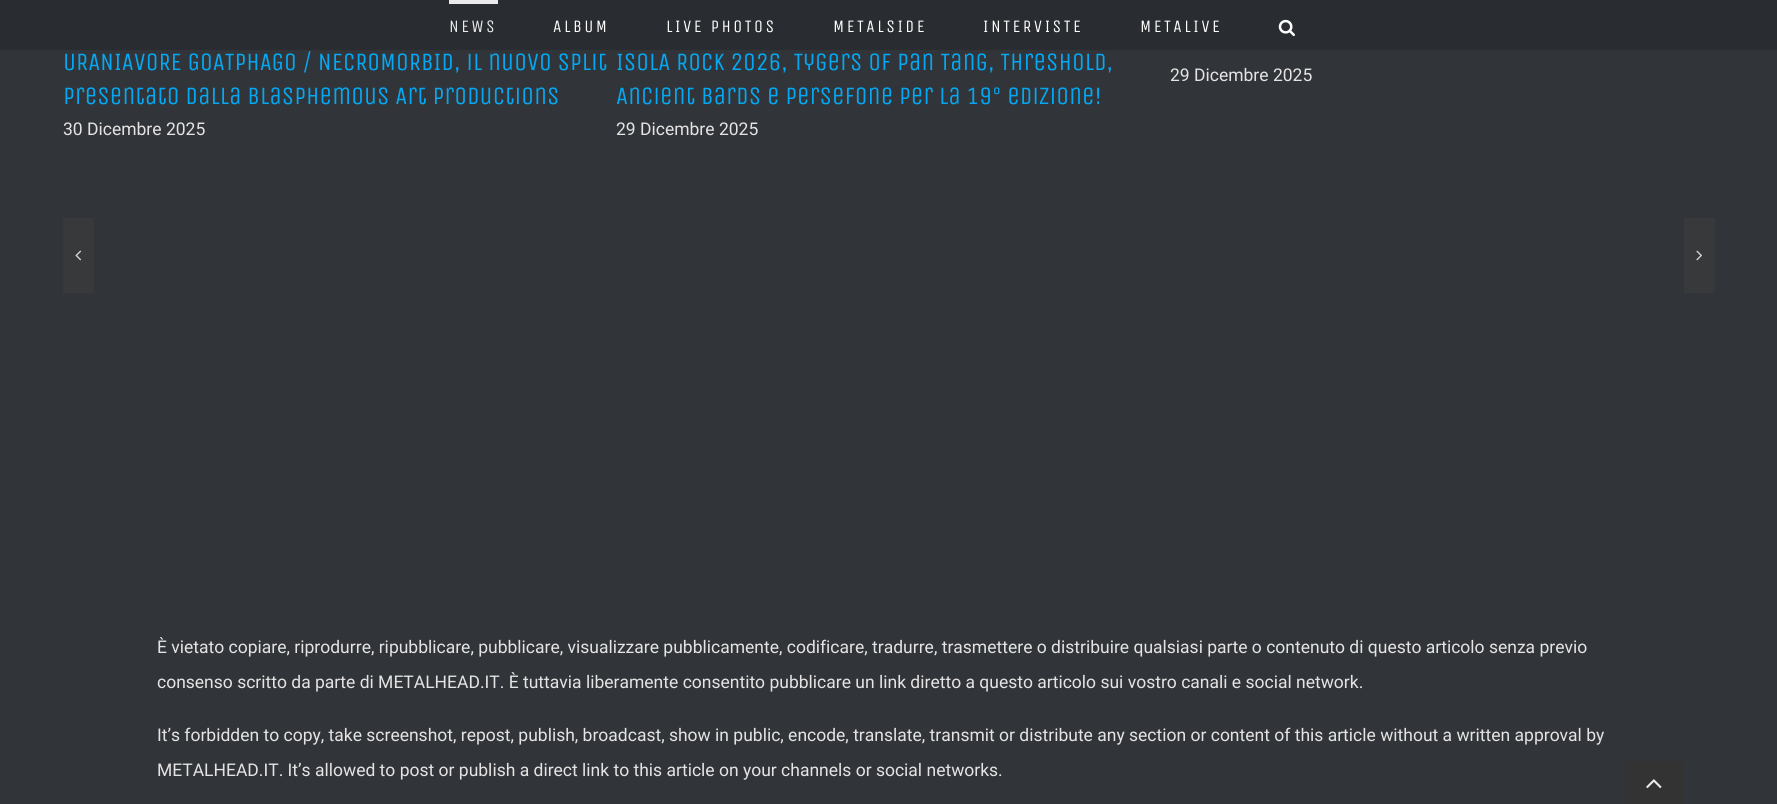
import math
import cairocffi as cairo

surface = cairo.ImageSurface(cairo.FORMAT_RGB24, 1777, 804)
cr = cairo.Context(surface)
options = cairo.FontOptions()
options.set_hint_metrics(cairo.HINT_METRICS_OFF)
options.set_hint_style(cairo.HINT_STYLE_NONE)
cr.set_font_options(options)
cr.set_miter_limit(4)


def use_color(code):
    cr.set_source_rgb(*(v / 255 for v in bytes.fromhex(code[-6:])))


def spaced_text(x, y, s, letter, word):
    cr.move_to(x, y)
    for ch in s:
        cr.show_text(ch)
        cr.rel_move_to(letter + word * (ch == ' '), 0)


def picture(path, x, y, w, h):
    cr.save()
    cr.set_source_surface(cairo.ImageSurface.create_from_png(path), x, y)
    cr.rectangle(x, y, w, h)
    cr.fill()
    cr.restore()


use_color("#313539")
cr.paint()
use_color("#292c30")
cr.rectangle(0, 0, 1777, 50)
cr.fill()
use_color("#eaeaea")
cr.rectangle(449, 0, 49, 4)
cr.fill()
cr.select_font_face("Unica One")
cr.set_font_size(17.5)
spaced_text(449, 32, "NEWS", 2.5, 0)
use_color("#ffffff")
spaced_text(553, 32, "ALBUM", 2.5, 0)
spaced_text(666, 32, "LIVE PHOTOS", 2.5, 0)
spaced_text(833, 32, "METALSIDE", 2.5, 0)
spaced_text(983, 32, "INTERVISTE", 2.5, 0)
spaced_text(1140, 32, "METALIVE", 2.5, 0)
picture("img1.png", 1278, 19, 17, 18)
cr.set_font_size(25)
use_color("#03a9f4")
cr.move_to(63, 70)
cr.show_text("URANIAVORE GOATPHAGO / NECROMORBID, il nuovo split")
cr.move_to(63, 104)
cr.show_text("presentato dalla Blasphemous Art Productions")
cr.select_font_face("Roboto")
cr.set_font_size(17.5)
use_color("#e5e3e3")
cr.move_to(63, 135)
cr.show_text("30 Dicembre 2025")
cr.select_font_face("Unica One")
cr.set_font_size(25)
use_color("#03a9f4")
cr.move_to(616, 70)
cr.show_text("ISOLA ROCK 2026, Tygers of Pan Tang, Threshold,")
cr.move_to(616, 104)
cr.show_text("Ancient Bards e Persefone per la 19° edizione!")
cr.select_font_face("Roboto")
cr.set_font_size(17.5)
use_color("#e5e3e3")
cr.move_to(616, 135)
cr.show_text("29 Dicembre 2025")
cr.move_to(1170, 81)
cr.show_text("29 Dicembre 2025")
use_color("#38393a")
cr.rectangle(63, 218, 31, 75)
cr.fill()
picture("img2.png", 75, 250, 7, 11)
cr.rectangle(1684, 218, 31, 75)
cr.fill()
picture("img3.png", 1696, 250, 6, 11)
use_color("#e5e3e3")
cr.move_to(157, 653)
cr.show_text("È vietato copiare, riprodurre, ripubblicare, pubblicare, visualizzare pubblicamente, codificare, tradurre, trasmettere o distribuire qualsiasi parte o contenuto di questo articolo senza previo")
cr.move_to(157, 688)
cr.show_text("consenso scritto da parte di METALHEAD.IT. È tuttavia liberamente consentito pubblicare un link diretto a questo articolo sui vostro canali e social network.")
cr.move_to(157, 741)
cr.show_text("It’s forbidden to copy, take screenshot, repost, publish, broadcast, show in public, encode, translate, transmit or distribute any section or content of this article without a written approval by")
cr.move_to(157, 776)
cr.show_text("METALHEAD.IT. It’s allowed to post or publish a direct link to this article on your channels or social networks.")
use_color("#333334")
cr.new_path()
cr.move_to(1629, 761)
cr.line_to(1679, 761)
cr.curve_to(1682, 761, 1684, 763, 1684, 766)
cr.line_to(1684, 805)
cr.line_to(1624, 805)
cr.line_to(1624, 766)
cr.curve_to(1624, 763, 1626, 761, 1629, 761)
cr.close_path()
cr.fill()
picture("img4.png", 1646, 779, 16, 10)
surface.write_to_png("result.png")
